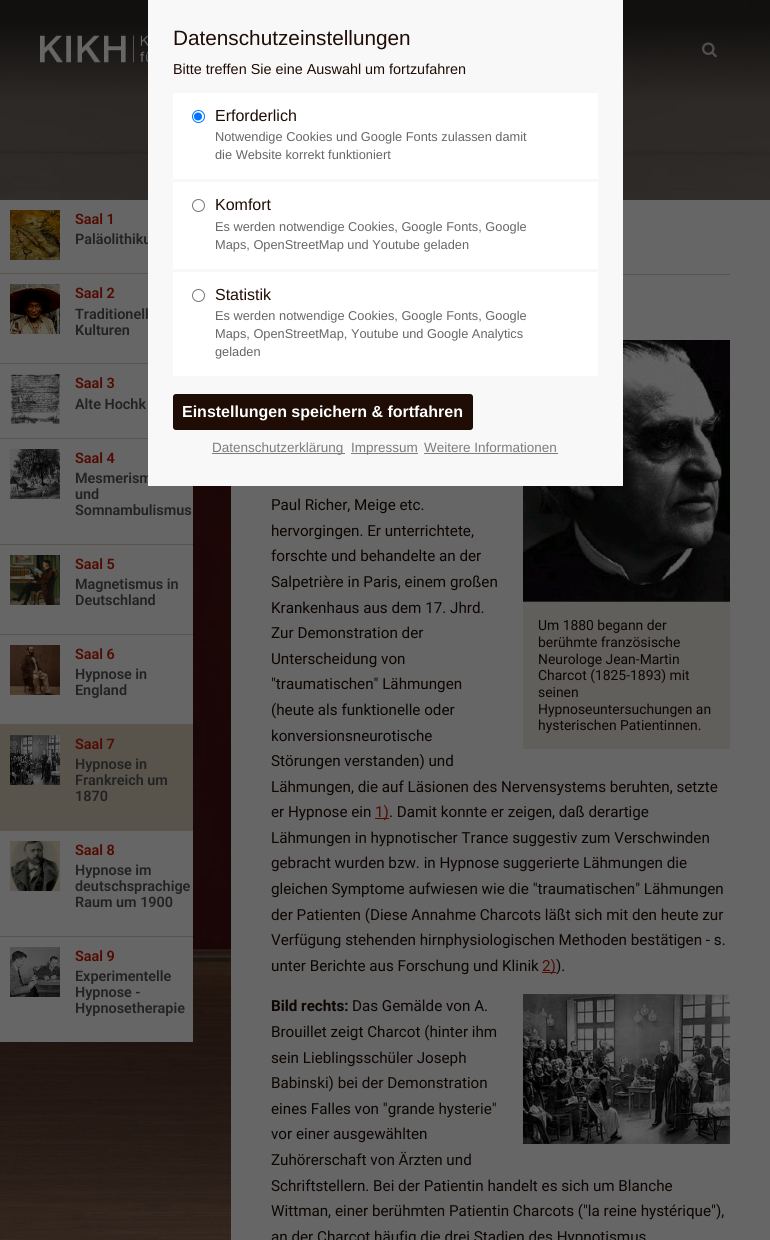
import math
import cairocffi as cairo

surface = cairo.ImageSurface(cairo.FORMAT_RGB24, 770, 1240)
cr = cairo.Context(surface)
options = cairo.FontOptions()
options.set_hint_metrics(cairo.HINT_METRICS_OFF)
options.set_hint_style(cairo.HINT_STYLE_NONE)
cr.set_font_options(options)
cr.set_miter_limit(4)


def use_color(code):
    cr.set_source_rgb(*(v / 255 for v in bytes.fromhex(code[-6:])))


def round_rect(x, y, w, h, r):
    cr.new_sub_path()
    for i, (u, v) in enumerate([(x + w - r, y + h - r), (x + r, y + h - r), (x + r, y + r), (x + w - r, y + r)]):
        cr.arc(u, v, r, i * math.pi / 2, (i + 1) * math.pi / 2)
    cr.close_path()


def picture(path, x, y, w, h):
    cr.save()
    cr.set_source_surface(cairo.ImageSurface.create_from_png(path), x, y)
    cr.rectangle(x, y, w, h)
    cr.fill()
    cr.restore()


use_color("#ffffff")
cr.paint()
picture("img1.png", 0, 0, 770, 1240)
use_color("#666666")
cr.rectangle(0, 200, 193, 842)
cr.fill()
cr.select_font_face("Roboto SemiBold")
cr.set_font_size(14.4)
use_color("#222222")
cr.move_to(75, 244)
cr.show_text("Paläolithiku")
cr.move_to(75, 483)
cr.show_text("Mesmerism")
use_color("#666666")
cr.rectangle(231, 200, 539, 1040)
cr.fill()
picture("img13.png", 523, 340, 207, 262)
use_color("#f8f8f8")
cr.rectangle(148, 0, 475, 486)
cr.fill()
cr.select_font_face("Liberation Sans")
cr.set_font_size(20.75)
use_color("#1f0c05")
cr.move_to(173, 45)
cr.show_text("Datenschutzeinstellungen")
cr.set_font_size(14.4)
cr.move_to(173, 74)
cr.show_text("Bitte treffen Sie eine Auswahl um fortzufahren")
use_color("#ffffff")
cr.rectangle(173, 93, 425, 86)
cr.fill()
cr.arc(198.5, 116.5, 6, 0, 2 * math.pi)
use_color("#0075ff")
cr.set_line_width(1)
cr.stroke()
cr.arc(198, 116.5, 4, 0, 2 * math.pi)
cr.fill()
cr.set_font_size(16)
use_color("#1f0c05")
cr.move_to(215, 121)
cr.show_text("Erforderlich")
cr.set_font_size(12.8)
use_color("#666666")
cr.move_to(215, 141)
cr.show_text("Notwendige Cookies und Google Fonts zulassen damit")
cr.move_to(215, 159)
cr.show_text("die Website korrekt funktioniert")
use_color("#ffffff")
cr.rectangle(173, 182, 425, 87)
cr.fill()
cr.arc(198.5, 205.5, 6, 0, 2 * math.pi)
use_color("#767676")
cr.stroke()
cr.set_font_size(16)
use_color("#1f0c05")
cr.move_to(215, 210)
cr.show_text("Komfort")
cr.set_font_size(12.8)
use_color("#666666")
cr.move_to(215, 231)
cr.show_text("Es werden notwendige Cookies, Google Fonts, Google")
cr.move_to(215, 249)
cr.show_text("Maps, OpenStreetMap und Youtube geladen")
use_color("#ffffff")
cr.rectangle(173, 272, 425, 104)
cr.fill()
cr.arc(198.5, 295.5, 6, 0, 2 * math.pi)
use_color("#767676")
cr.stroke()
cr.set_font_size(16)
use_color("#1f0c05")
cr.move_to(215, 300)
cr.show_text("Statistik")
cr.set_font_size(12.8)
use_color("#666666")
cr.move_to(215, 320)
cr.show_text("Es werden notwendige Cookies, Google Fonts, Google")
cr.move_to(215, 338)
cr.show_text("Maps, OpenStreetMap, Youtube und Google Analytics")
cr.move_to(215, 356)
cr.show_text("geladen")
use_color("#1f0c05")
round_rect(173, 394, 300, 36, 3)
cr.fill()
round_rect(173.5, 394.5, 299, 35, 2.5)
cr.set_source_rgba(0, 0, 0, 0.2)
cr.stroke()
cr.select_font_face("Liberation Sans", cairo.FONT_SLANT_NORMAL, cairo.FONT_WEIGHT_BOLD)
cr.set_font_size(16)
use_color("#ffffff")
cr.move_to(182, 417)
cr.show_text("Einstellungen speichern & fortfahren")
use_color("#7c7c7c")
cr.rectangle(212, 453, 133, 1)
cr.fill()
cr.select_font_face("Liberation Sans")
cr.set_font_size(13.5)
cr.move_to(212, 452)
cr.show_text("Datenschutzerklärung")
cr.rectangle(351, 453, 67, 1)
cr.fill()
cr.move_to(351, 452)
cr.show_text("Impressum")
cr.move_to(424, 452)
cr.show_text("Weitere Informationen")
cr.rectangle(424, 453, 134, 1)
cr.fill()
picture("img2.png", 40, 35, 108, 28)
picture("img3.png", 702, 42, 15, 16)
use_color("#58544c")
cr.rectangle(0, 273, 148, 1)
cr.fill()
picture("img4.png", 10, 210, 50, 50)
cr.select_font_face("Roboto SemiBold")
cr.set_font_size(14.4)
use_color("#510a00")
cr.move_to(75, 224)
cr.show_text("Saal 1")
use_color("#58544c")
cr.rectangle(0, 363, 148, 1)
cr.fill()
picture("img5.png", 10, 284, 50, 50)
use_color("#510a00")
cr.move_to(75, 298)
cr.show_text("Saal 2")
use_color("#222222")
cr.move_to(75, 319)
cr.show_text("Traditionell")
cr.move_to(75, 335)
cr.show_text("Kulturen")
use_color("#58544c")
cr.rectangle(0, 438, 148, 1)
cr.fill()
picture("img6.png", 10, 374, 50, 50)
use_color("#510a00")
cr.move_to(75, 388)
cr.show_text("Saal 3")
use_color("#222222")
cr.move_to(75, 409)
cr.show_text("Alte Hochk")
use_color("#58544c")
cr.rectangle(0, 544, 193, 1)
cr.fill()
picture("img7.png", 10, 449, 50, 50)
use_color("#510a00")
cr.move_to(75, 463)
cr.show_text("Saal 4")
use_color("#222222")
cr.move_to(75, 499)
cr.show_text("und")
cr.move_to(75, 515)
cr.show_text("Somnambulismus")
use_color("#58544c")
cr.rectangle(0, 634, 193, 1)
cr.fill()
picture("img8.png", 10, 555, 50, 50)
use_color("#510a00")
cr.move_to(75, 569)
cr.show_text("Saal 5")
use_color("#222222")
cr.move_to(75, 589)
cr.show_text("Magnetismus in")
cr.move_to(75, 605)
cr.show_text("Deutschland")
use_color("#58544c")
cr.rectangle(0, 724, 193, 107)
cr.fill()
picture("img9.png", 10, 645, 50, 50)
use_color("#510a00")
cr.move_to(75, 659)
cr.show_text("Saal 6")
use_color("#222222")
cr.move_to(75, 679)
cr.show_text("Hypnose in")
cr.move_to(75, 695)
cr.show_text("England")
picture("img10.png", 10, 735, 50, 50)
use_color("#510a00")
cr.move_to(75, 749)
cr.show_text("Saal 7")
use_color("#222222")
cr.move_to(75, 769)
cr.show_text("Hypnose in")
cr.move_to(75, 785)
cr.show_text("Frankreich um")
cr.move_to(75, 801)
cr.show_text("1870")
use_color("#58544c")
cr.rectangle(0, 936, 193, 1)
cr.fill()
picture("img11.png", 10, 841, 50, 50)
use_color("#510a00")
cr.move_to(75, 855)
cr.show_text("Saal 8")
use_color("#222222")
cr.move_to(75, 875)
cr.show_text("Hypnose im")
cr.move_to(75, 891)
cr.show_text("deutschsprachige")
cr.move_to(75, 907)
cr.show_text("Raum um 1900")
picture("img12.png", 10, 947, 50, 50)
use_color("#510a00")
cr.move_to(75, 961)
cr.show_text("Saal 9")
use_color("#222222")
cr.move_to(75, 981)
cr.show_text("Experimentelle")
cr.move_to(75, 997)
cr.show_text("Hypnose -")
cr.move_to(75, 1013)
cr.show_text("Hypnosetherapie")
use_color("#58544c")
cr.rectangle(623, 274, 107, 1)
cr.fill()
cr.select_font_face("Roboto")
cr.set_font_size(15.2)
use_color("#0c0502")
cr.move_to(271, 510)
cr.show_text("Paul Richer, Meige etc.")
cr.move_to(271, 536)
cr.show_text("hervorgingen. Er unterrichtete,")
cr.move_to(271, 561)
cr.show_text("forschte und behandelte an der")
cr.move_to(271, 587)
cr.show_text("Salpetrière in Paris, einem großen")
cr.move_to(271, 613)
cr.show_text("Krankenhaus aus dem 17. Jhrd.")
cr.move_to(271, 638)
cr.show_text("Zur Demonstration der")
cr.move_to(271, 664)
cr.show_text("Unterscheidung von")
cr.move_to(271, 689)
cr.show_text("\"traumatischen\" Lähmungen")
cr.move_to(271, 715)
cr.show_text("(heute als funktionelle oder")
cr.move_to(271, 741)
cr.show_text("konversionsneurotische")
cr.move_to(271, 766)
cr.show_text("Störungen verstanden) und")
cr.move_to(271, 792)
cr.show_text("Lähmungen, die auf Läsionen des Nervensystems beruhten, setzte")
cr.move_to(271, 817)
cr.show_text("er Hypnose ein")
use_color("#510a00")
cr.rectangle(375, 818, 14, 1)
cr.fill()
cr.move_to(375, 817)
cr.show_text("1)")
use_color("#0c0502")
cr.move_to(389, 817)
cr.show_text(". Damit konnte er zeigen, daß derartige")
cr.move_to(271, 843)
cr.show_text("Lähmungen in hypnotischer Trance suggestiv zum Verschwinden")
cr.move_to(271, 868)
cr.show_text("gebracht wurden bzw. in Hypnose suggerierte Lähmungen die")
cr.move_to(271, 894)
cr.show_text("gleichen Symptome aufwiesen wie die \"traumatischen\" Lähmungen")
cr.move_to(271, 920)
cr.show_text("der Patienten (Diese Annahme Charcots läßt sich mit den heute zur")
cr.move_to(271, 945)
cr.show_text("Verfügung stehenden hirnphysiologischen Methoden bestätigen - s.")
cr.move_to(271, 971)
cr.show_text("unter Berichte aus Forschung und Klinik")
use_color("#510a00")
cr.rectangle(542, 972, 14, 1)
cr.fill()
cr.move_to(542, 971)
cr.show_text("2)")
use_color("#0c0502")
cr.move_to(556, 971)
cr.show_text(").")
use_color("#605f5c")
cr.rectangle(523, 602, 207, 147)
cr.fill()
cr.set_font_size(13.9)
use_color("#0c0502")
cr.move_to(538, 630)
cr.show_text("Um 1880 begann der")
cr.move_to(538, 647)
cr.show_text("berühmte französische")
cr.move_to(538, 664)
cr.show_text("Neurologe Jean-Martin")
cr.move_to(538, 680)
cr.show_text("Charcot (1825-1893) mit")
cr.move_to(538, 697)
cr.show_text("seinen")
cr.move_to(538, 714)
cr.show_text("Hypnoseuntersuchungen an")
cr.move_to(538, 730)
cr.show_text("hysterischen Patientinnen.")
picture("img14.png", 523, 994, 207, 150)
cr.select_font_face("Roboto", cairo.FONT_SLANT_NORMAL, cairo.FONT_WEIGHT_BOLD)
cr.set_font_size(15.2)
cr.move_to(271, 1011)
cr.show_text("Bild rechts:")
cr.select_font_face("Roboto")
cr.move_to(352, 1011)
cr.show_text("Das Gemälde von A.")
cr.move_to(271, 1037)
cr.show_text("Brouillet zeigt Charcot (hinter ihm")
cr.move_to(271, 1063)
cr.show_text("sein Lieblingsschüler Joseph")
cr.move_to(271, 1088)
cr.show_text("Babinski) bei der Demonstration")
cr.move_to(271, 1114)
cr.show_text("eines Falles von \"grande hysterie\"")
cr.move_to(271, 1139)
cr.show_text("vor einer ausgewählten")
cr.move_to(271, 1165)
cr.show_text("Zuhörerschaft von Ärzten und")
cr.move_to(271, 1191)
cr.show_text("Schriftstellern. Bei der Patientin handelt es sich um Blanche")
cr.move_to(271, 1216)
cr.show_text("Wittman, einer berühmten Patientin Charcots (\"la reine hystérique\"),")
cr.move_to(271, 1242)
cr.show_text("an der Charcot häufig die drei Stadien des Hypnotismus")
surface.write_to_png("result.png")
